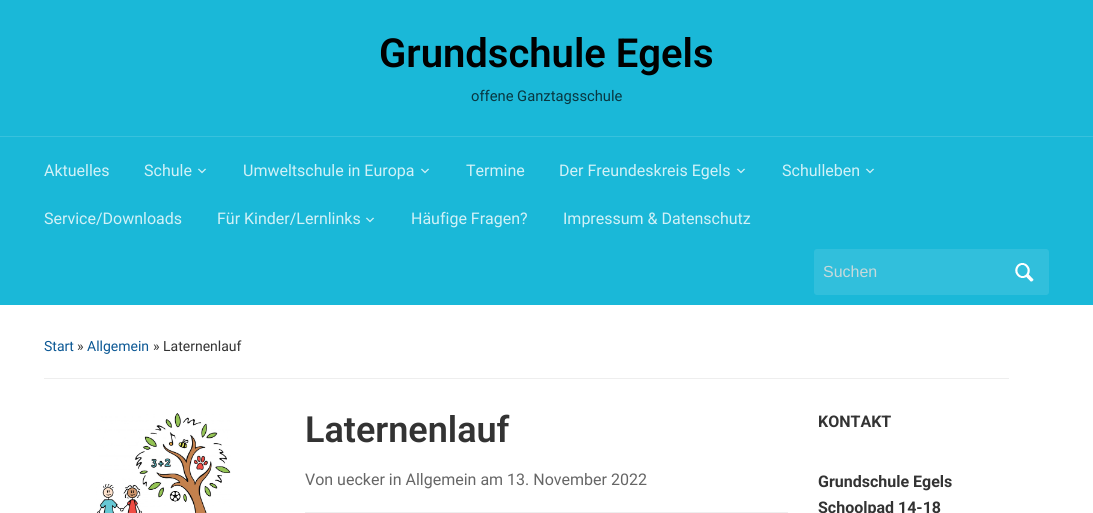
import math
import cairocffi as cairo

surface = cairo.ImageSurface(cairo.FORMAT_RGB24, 1093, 513)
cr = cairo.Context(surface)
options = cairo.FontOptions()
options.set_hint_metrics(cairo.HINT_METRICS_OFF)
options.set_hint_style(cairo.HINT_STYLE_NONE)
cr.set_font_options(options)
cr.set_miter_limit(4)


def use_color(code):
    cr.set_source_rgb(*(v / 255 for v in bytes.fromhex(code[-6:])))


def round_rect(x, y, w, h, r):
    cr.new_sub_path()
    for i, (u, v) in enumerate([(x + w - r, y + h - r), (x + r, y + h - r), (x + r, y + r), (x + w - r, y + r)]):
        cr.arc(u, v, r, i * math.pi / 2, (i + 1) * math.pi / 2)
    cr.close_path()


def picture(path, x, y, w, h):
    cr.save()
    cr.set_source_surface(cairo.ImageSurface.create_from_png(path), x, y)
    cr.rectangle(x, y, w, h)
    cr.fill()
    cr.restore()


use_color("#ffffff")
cr.paint()
use_color("#1ab8d8")
cr.rectangle(0, 0, 1093, 305)
cr.fill()
cr.select_font_face("Roboto SemiBold")
cr.set_font_size(40)
use_color("#000000")
cr.move_to(379, 67)
cr.show_text("Grundschule Egels")
cr.select_font_face("Roboto")
cr.set_font_size(14.75)
use_color("#083741")
cr.move_to(471, 101)
cr.show_text("offene Ganztagsschule")
use_color("#38c1dd")
cr.rectangle(0, 136, 1093, 1)
cr.fill()
cr.set_font_size(16)
use_color("#d1f1f7")
cr.move_to(44, 176)
cr.show_text("Aktuelles")
cr.move_to(144, 176)
cr.show_text("Schule")
picture("img1.png", 197, 168, 10, 6)
cr.move_to(243, 176)
cr.show_text("Umweltschule in Europa")
picture("img1.png", 420, 168, 10, 6)
cr.move_to(466, 176)
cr.show_text("Termine")
cr.move_to(559, 176)
cr.show_text("Der Freundeskreis Egels")
picture("img1.png", 736, 168, 10, 6)
cr.move_to(782, 176)
cr.show_text("Schulleben")
picture("img1.png", 865, 168, 10, 6)
cr.move_to(44, 224)
cr.show_text("Service/Downloads")
cr.move_to(217, 224)
cr.show_text("Für Kinder/Lernlinks")
picture("img1.png", 365, 217, 10, 6)
cr.move_to(411, 224)
cr.show_text("Häufige Fragen?")
cr.move_to(563, 224)
cr.show_text("Impressum & Datenschutz")
use_color("#31bfdc")
round_rect(814, 249, 235, 46, 3)
cr.fill()
cr.select_font_face("Liberation Sans")
use_color("#c6d9db")
cr.move_to(823, 277)
cr.show_text("Suchen")
picture("img2.png", 1015, 263, 19, 19)
use_color("#eeeeee")
cr.rectangle(44, 378, 965, 1)
cr.fill()
cr.select_font_face("Roboto")
cr.set_font_size(14)
use_color("#0a5794")
cr.move_to(44, 351)
cr.show_text("Start")
use_color("#333333")
cr.move_to(77, 351)
cr.show_text("»")
use_color("#0a5794")
cr.move_to(87, 351)
cr.show_text("Allgemein")
use_color("#333333")
cr.move_to(153, 351)
cr.show_text("» Laternenlauf")
picture("img3.png", 96, 413, 135, 100)
cr.select_font_face("Roboto SemiBold")
cr.set_font_size(36)
cr.move_to(305, 442)
cr.show_text("Laternenlauf")
use_color("#eeeeee")
cr.rectangle(305, 512, 483, 1)
cr.fill()
cr.select_font_face("Roboto")
cr.set_font_size(16)
use_color("#666666")
cr.move_to(305, 485)
cr.show_text("Von uecker in Allgemein am 13. November 2022")
cr.select_font_face("Roboto", cairo.FONT_SLANT_NORMAL, cairo.FONT_WEIGHT_BOLD)
use_color("#333333")
cr.move_to(818, 427)
cr.show_text("KONTAKT")
cr.move_to(818, 487)
cr.show_text("Grundschule Egels")
cr.move_to(818, 513)
cr.show_text("Schoolpad 14-18")
surface.write_to_png("result.png")
